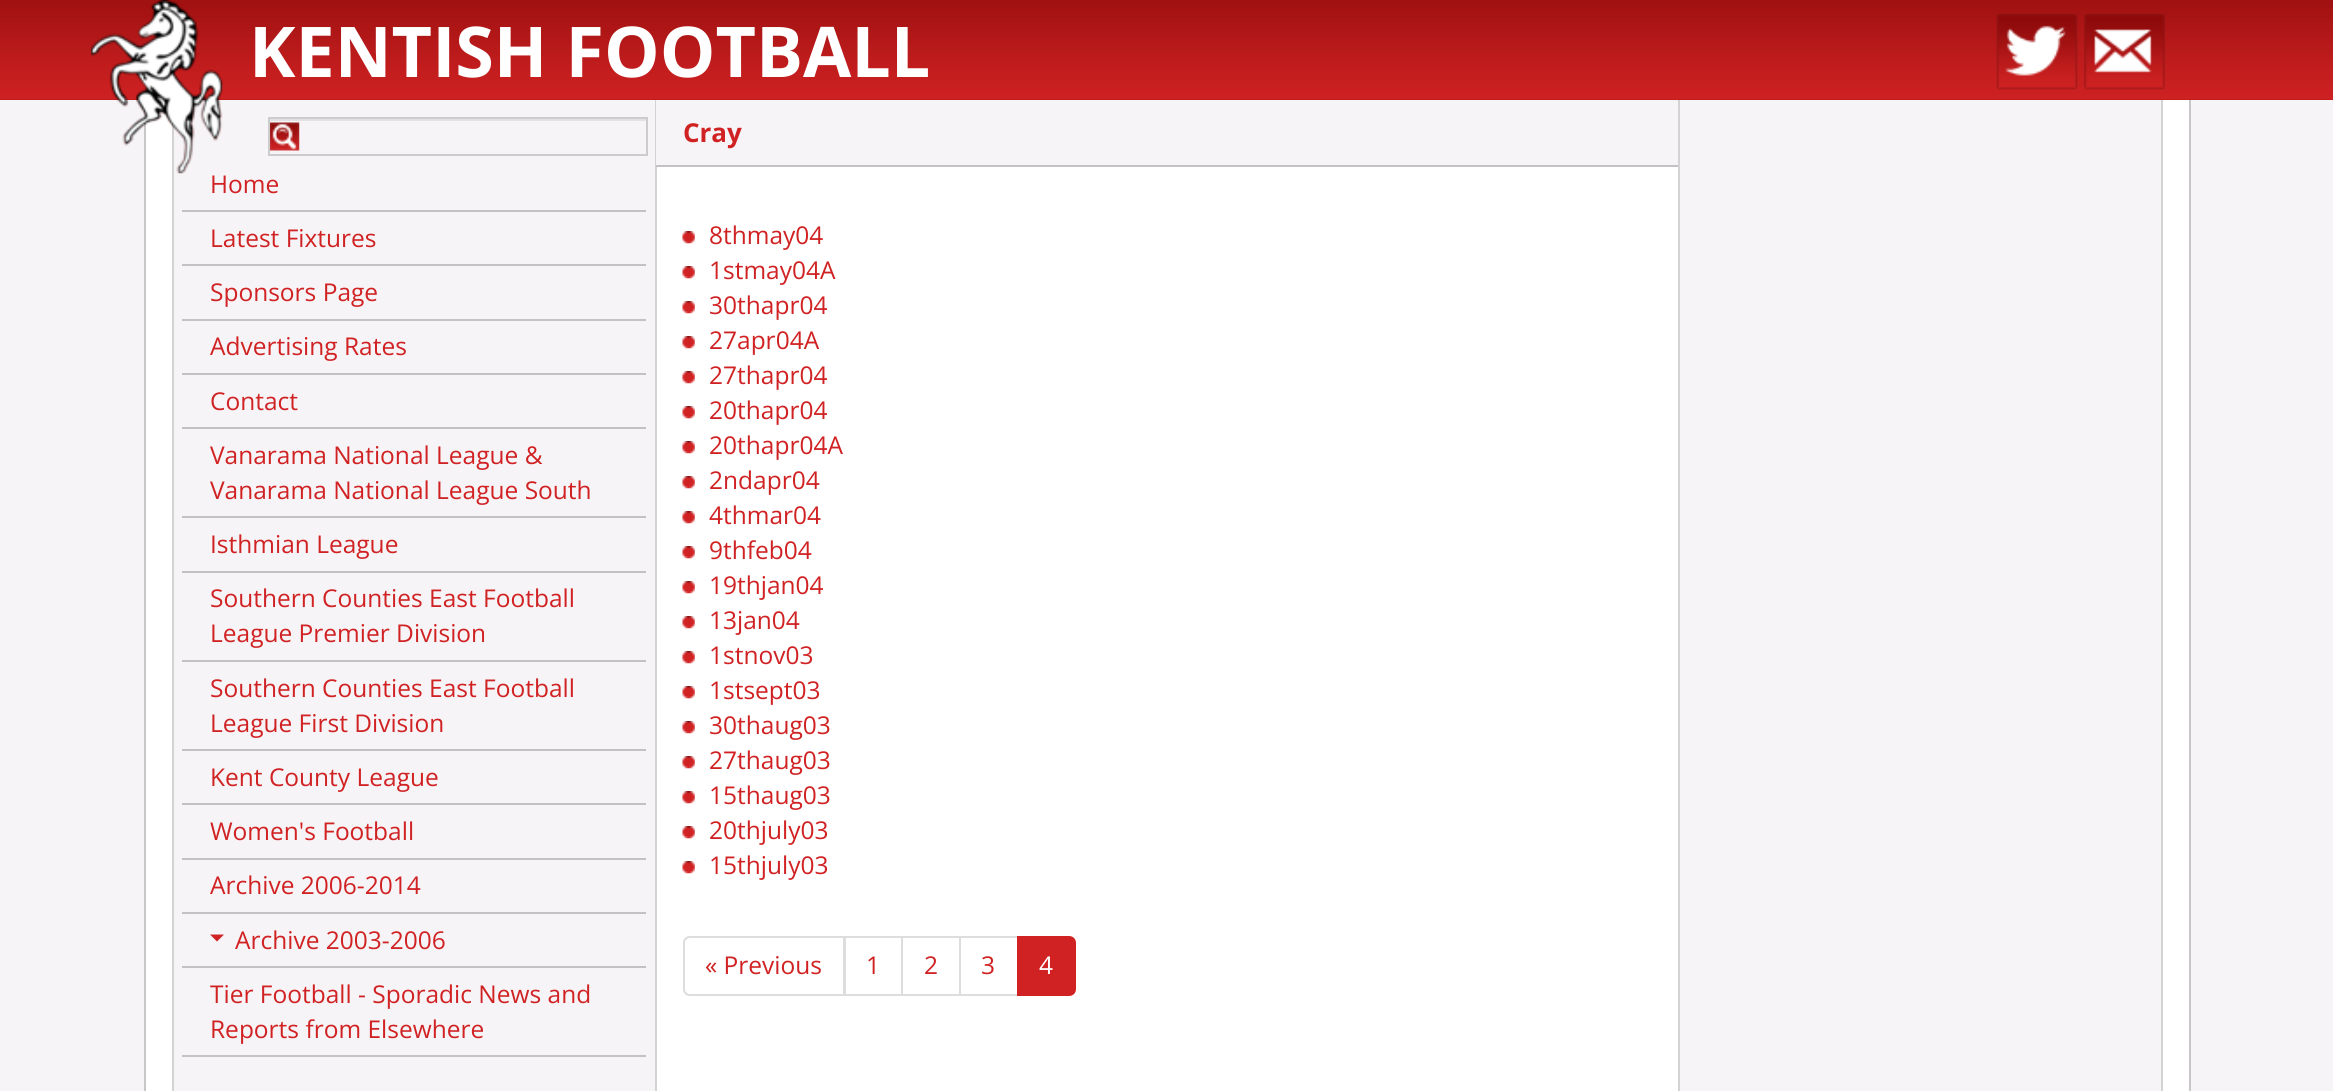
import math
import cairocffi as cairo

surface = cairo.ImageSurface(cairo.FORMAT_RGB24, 2333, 1091)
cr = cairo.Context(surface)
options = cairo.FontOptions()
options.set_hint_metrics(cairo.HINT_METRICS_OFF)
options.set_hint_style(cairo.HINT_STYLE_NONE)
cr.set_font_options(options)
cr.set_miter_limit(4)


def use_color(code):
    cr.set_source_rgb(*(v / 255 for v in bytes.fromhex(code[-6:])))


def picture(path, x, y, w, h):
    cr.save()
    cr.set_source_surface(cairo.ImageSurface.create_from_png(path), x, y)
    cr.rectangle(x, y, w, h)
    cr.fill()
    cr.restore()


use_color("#ffffff")
cr.paint()
picture("img1.png", 0, 99, 2333, 1)
picture("img2.png", 0, 0, 2333, 100)
use_color("#f6f4f7")
cr.rectangle(0, 100, 2333, 991)
cr.fill()
use_color("#ffffff")
cr.rectangle(146, 100, 2043, 991)
cr.fill()
use_color("#c8c6c9")
cr.rectangle(144, 109, 2, 982)
cr.fill()
use_color("#f7f4f7")
cr.rectangle(174, 100, 481, 991)
cr.fill()
use_color("#d3d3d3")
cr.rectangle(172, 122, 2, 969)
cr.fill()
picture("img3.png", 91, 0, 132, 174)
cr.select_font_face("Open Sans", cairo.FONT_SLANT_NORMAL, cairo.FONT_WEIGHT_BOLD)
cr.set_font_size(70)
use_color("#ffffff")
cr.move_to(249, 77)
cr.show_text("KENTISH FOOTBALL")
picture("img4.png", 1996, 14, 82, 76)
picture("img5.png", 2084, 14, 81, 76)
use_color("#c8c6c9")
cr.rectangle(2189, 100, 2, 991)
cr.fill()
use_color("#d3d3d3")
cr.rectangle(655, 100, 2, 991)
cr.fill()
picture("img6.png", 270, 122, 30, 29)
use_color("#e4e2e4")
cr.rectangle(270, 119, 376, 2)
cr.fill()
cr.rectangle(269, 118, 378, 37)
use_color("#cccccc")
cr.stroke()
use_color("#c2c1c3")
cr.rectangle(182, 210, 464, 2)
cr.fill()
cr.select_font_face("Open Sans")
cr.set_font_size(24.5)
use_color("#d02223")
cr.move_to(210, 193)
cr.show_text("Home")
use_color("#c2c1c3")
cr.rectangle(182, 264, 464, 2)
cr.fill()
use_color("#d02223")
cr.move_to(210, 247)
cr.show_text("Latest Fixtures")
use_color("#c2c1c3")
cr.rectangle(182, 319, 464, 2)
cr.fill()
use_color("#d02223")
cr.move_to(210, 301)
cr.show_text("Sponsors Page")
use_color("#c2c1c3")
cr.rectangle(182, 373, 464, 2)
cr.fill()
use_color("#d02223")
cr.move_to(210, 355)
cr.show_text("Advertising Rates")
use_color("#c2c1c3")
cr.rectangle(182, 427, 464, 2)
cr.fill()
use_color("#d02223")
cr.move_to(210, 410)
cr.show_text("Contact")
use_color("#c2c1c3")
cr.rectangle(182, 516, 464, 2)
cr.fill()
use_color("#d02223")
cr.move_to(210, 464)
cr.show_text("Vanarama National League &")
cr.move_to(210, 499)
cr.show_text("Vanarama National League South")
use_color("#c2c1c3")
cr.rectangle(182, 571, 464, 2)
cr.fill()
use_color("#d02223")
cr.move_to(210, 553)
cr.show_text("Isthmian League")
use_color("#c2c1c3")
cr.rectangle(182, 660, 464, 2)
cr.fill()
use_color("#d02223")
cr.move_to(210, 607)
cr.show_text("Southern Counties East Football")
cr.move_to(210, 642)
cr.show_text("League Premier Division")
use_color("#c2c1c3")
cr.rectangle(182, 749, 464, 2)
cr.fill()
use_color("#d02223")
cr.move_to(210, 697)
cr.show_text("Southern Counties East Football")
cr.move_to(210, 732)
cr.show_text("League First Division")
use_color("#c2c1c3")
cr.rectangle(182, 803, 464, 2)
cr.fill()
use_color("#d02223")
cr.move_to(210, 786)
cr.show_text("Kent County League")
use_color("#c2c1c3")
cr.rectangle(182, 858, 464, 2)
cr.fill()
use_color("#d02223")
cr.move_to(210, 840)
cr.show_text("Women's Football")
use_color("#c2c1c3")
cr.rectangle(182, 912, 464, 2)
cr.fill()
use_color("#d02223")
cr.move_to(210, 894)
cr.show_text("Archive 2006-2014")
use_color("#c2c1c3")
cr.rectangle(182, 966, 464, 2)
cr.fill()
use_color("#d02223")
cr.new_path()
cr.move_to(210, 934.5)
cr.line_to(224, 934.5)
cr.line_to(217, 941.5)
cr.close_path()
cr.fill()
cr.move_to(235, 949)
cr.show_text("Archive 2003-2006")
use_color("#c2c1c3")
cr.rectangle(182, 1055, 464, 2)
cr.fill()
use_color("#d02223")
cr.move_to(210, 1003)
cr.show_text("Tier Football - Sporadic News and")
cr.move_to(210, 1038)
cr.show_text("Reports from Elsewhere")
use_color("#f7f4f7")
cr.rectangle(656, 100, 1022, 65)
cr.fill()
use_color("#c2c1c3")
cr.rectangle(656, 165, 1022, 2)
cr.fill()
cr.select_font_face("Open Sans", cairo.FONT_SLANT_NORMAL, cairo.FONT_WEIGHT_BOLD)
cr.set_font_size(26)
use_color("#d02223")
cr.move_to(683, 142)
cr.show_text("Cray")
picture("img7.png", 682, 231, 13, 13)
cr.select_font_face("Open Sans")
cr.set_font_size(24.5)
cr.move_to(709, 244)
cr.show_text("8thmay04")
picture("img7.png", 682, 266, 13, 13)
cr.move_to(709, 279)
cr.show_text("1stmay04A")
picture("img7.png", 682, 301, 13, 13)
cr.move_to(709, 314)
cr.show_text("30thapr04")
picture("img7.png", 682, 336, 13, 13)
cr.move_to(709, 349)
cr.show_text("27apr04A")
picture("img7.png", 682, 371, 13, 13)
cr.move_to(709, 384)
cr.show_text("27thapr04")
picture("img7.png", 682, 406, 13, 13)
cr.move_to(709, 419)
cr.show_text("20thapr04")
picture("img7.png", 682, 441, 13, 13)
cr.move_to(709, 454)
cr.show_text("20thapr04A")
picture("img7.png", 682, 476, 13, 13)
cr.move_to(709, 489)
cr.show_text("2ndapr04")
picture("img7.png", 682, 511, 13, 13)
cr.move_to(709, 524)
cr.show_text("4thmar04")
picture("img7.png", 682, 546, 13, 13)
cr.move_to(709, 559)
cr.show_text("9thfeb04")
picture("img7.png", 682, 581, 13, 13)
cr.move_to(709, 594)
cr.show_text("19thjan04")
picture("img7.png", 682, 616, 13, 13)
cr.move_to(709, 629)
cr.show_text("13jan04")
picture("img7.png", 682, 651, 13, 13)
cr.move_to(709, 664)
cr.show_text("1stnov03")
picture("img7.png", 682, 686, 13, 13)
cr.move_to(709, 699)
cr.show_text("1stsept03")
picture("img7.png", 682, 721, 13, 13)
cr.move_to(709, 734)
cr.show_text("30thaug03")
picture("img7.png", 682, 756, 13, 13)
cr.move_to(709, 769)
cr.show_text("27thaug03")
picture("img7.png", 682, 791, 13, 13)
cr.move_to(709, 804)
cr.show_text("15thaug03")
picture("img7.png", 682, 826, 13, 13)
cr.move_to(709, 839)
cr.show_text("20thjuly03")
picture("img7.png", 682, 861, 13, 13)
cr.move_to(709, 874)
cr.show_text("15thjuly03")
cr.new_path()
cr.move_to(690, 937)
cr.line_to(844, 937)
cr.line_to(844, 995)
cr.line_to(690, 995)
cr.curve_to(686.5, 995, 684, 992.5, 684, 989)
cr.line_to(684, 943)
cr.curve_to(684, 939.5, 686.5, 937, 690, 937)
cr.close_path()
use_color("#dddddd")
cr.stroke()
use_color("#d02223")
cr.move_to(705, 974)
cr.show_text("« Previous")
cr.rectangle(845, 937, 57, 58)
use_color("#dddddd")
cr.stroke()
use_color("#d02223")
cr.move_to(866, 974)
cr.show_text("1")
cr.rectangle(902, 937, 58, 58)
use_color("#dddddd")
cr.stroke()
use_color("#d02223")
cr.move_to(924, 974)
cr.show_text("2")
cr.rectangle(960, 937, 58, 58)
use_color("#dddddd")
cr.stroke()
use_color("#d02223")
cr.move_to(981, 974)
cr.show_text("3")
cr.new_path()
cr.move_to(1018, 937)
cr.line_to(1069, 937)
cr.curve_to(1072.5, 937, 1075, 939.5, 1075, 943)
cr.line_to(1075, 989)
cr.curve_to(1075, 992.5, 1072.5, 995, 1069, 995)
cr.line_to(1018, 995)
cr.close_path()
cr.fill_preserve()
cr.stroke()
use_color("#ffffff")
cr.move_to(1039, 974)
cr.show_text("4")
use_color("#f7f4f7")
cr.rectangle(1680, 100, 481, 991)
cr.fill()
use_color("#d3d3d3")
cr.rectangle(2161, 100, 2, 991)
cr.fill()
cr.rectangle(1678, 100, 2, 991)
cr.fill()
surface.write_to_png("result.png")
